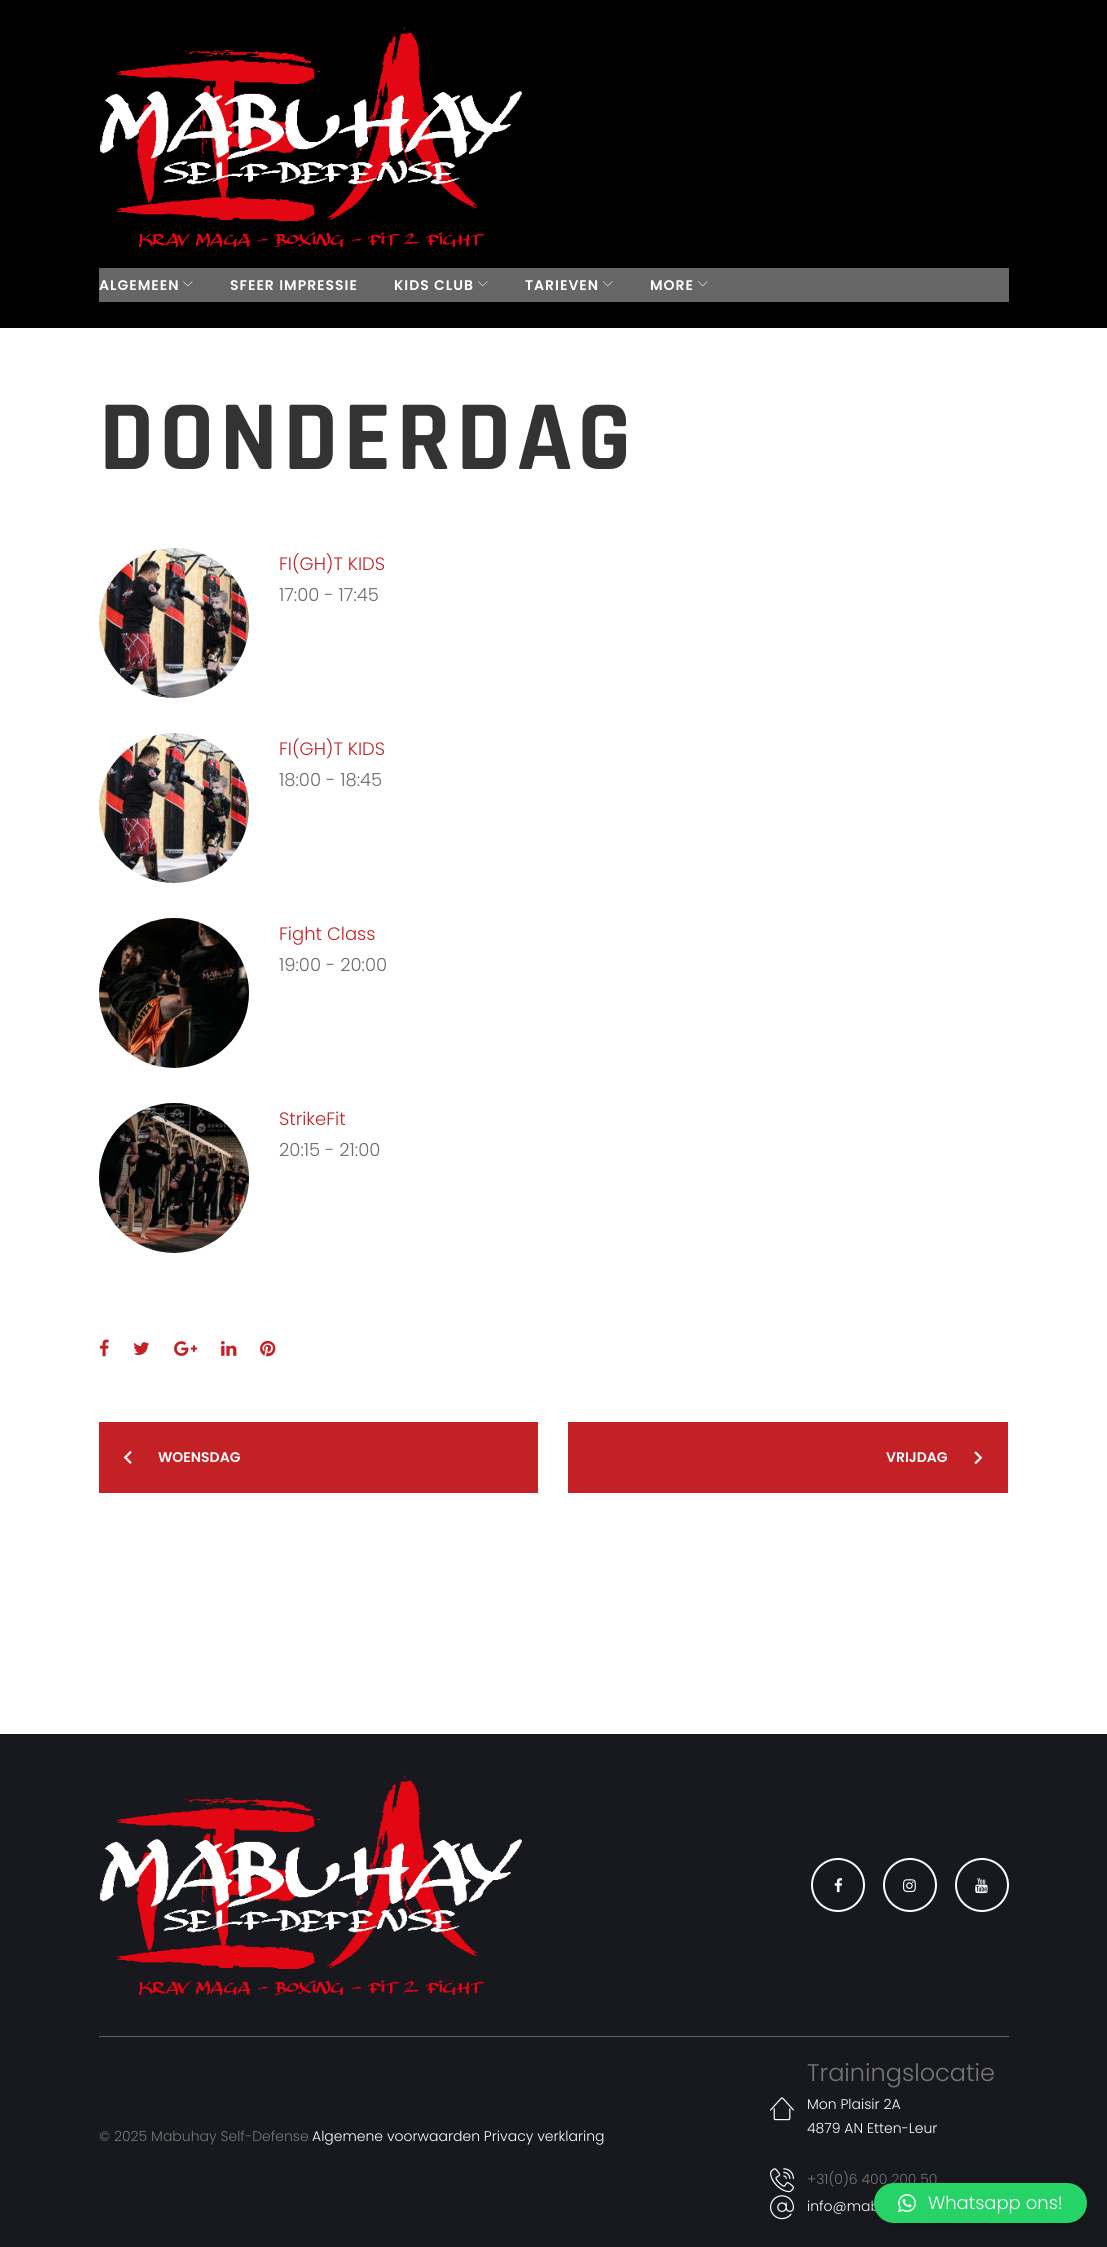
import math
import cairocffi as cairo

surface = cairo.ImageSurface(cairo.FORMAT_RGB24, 1107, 2247)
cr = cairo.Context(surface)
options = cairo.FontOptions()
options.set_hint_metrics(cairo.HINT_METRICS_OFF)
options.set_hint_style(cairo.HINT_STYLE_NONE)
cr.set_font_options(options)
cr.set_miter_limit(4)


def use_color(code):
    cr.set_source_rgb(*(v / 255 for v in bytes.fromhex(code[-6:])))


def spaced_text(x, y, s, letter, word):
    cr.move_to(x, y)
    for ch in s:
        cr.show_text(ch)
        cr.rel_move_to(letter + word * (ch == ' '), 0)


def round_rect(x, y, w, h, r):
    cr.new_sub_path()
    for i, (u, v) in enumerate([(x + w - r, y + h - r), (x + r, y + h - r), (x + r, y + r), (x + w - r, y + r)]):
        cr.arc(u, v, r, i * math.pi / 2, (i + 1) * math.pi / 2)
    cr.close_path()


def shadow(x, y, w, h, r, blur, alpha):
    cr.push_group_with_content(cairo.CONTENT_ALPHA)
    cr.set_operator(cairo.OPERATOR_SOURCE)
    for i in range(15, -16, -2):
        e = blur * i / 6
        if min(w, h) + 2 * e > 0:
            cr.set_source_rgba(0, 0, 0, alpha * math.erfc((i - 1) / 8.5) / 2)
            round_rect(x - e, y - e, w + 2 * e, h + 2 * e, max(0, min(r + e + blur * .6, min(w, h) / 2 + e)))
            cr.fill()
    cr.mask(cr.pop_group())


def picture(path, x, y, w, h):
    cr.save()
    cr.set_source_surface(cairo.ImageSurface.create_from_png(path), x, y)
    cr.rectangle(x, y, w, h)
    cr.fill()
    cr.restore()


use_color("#ffffff")
cr.paint()
use_color("#000000")
cr.rectangle(0, 0, 1107, 328)
cr.fill()
picture("img1.png", 100, 27, 422, 220)
use_color("#666666")
cr.rectangle(99, 268, 910, 34)
cr.fill()
cr.select_font_face("Poppins SemiBold")
cr.set_font_size(14)
use_color("#ffffff")
spaced_text(99, 290, "ALGEMEEN", 1, 0)
picture("img2.png", 183, 281, 10, 6)
spaced_text(230, 290, "SFEER IMPRESSIE", 1, 0)
spaced_text(394, 290, "KIDS CLUB", 1, 0)
picture("img2.png", 478, 281, 10, 6)
spaced_text(525, 290, "TARIEVEN", 1, 0)
picture("img2.png", 603, 281, 10, 6)
spaced_text(650, 290, "MORE", 1, 0)
picture("img2.png", 698, 281, 10, 6)
cr.select_font_face("Rajdhani", cairo.FONT_SLANT_NORMAL, cairo.FONT_WEIGHT_BOLD)
cr.set_font_size(100)
use_color("#333333")
spaced_text(99, 469, "DONDERDAG", 5, 0)
picture("img3.png", 99, 548, 150, 150)
cr.select_font_face("Poppins Light")
cr.set_font_size(18)
use_color("#c42126")
cr.move_to(279, 570)
cr.show_text("FI(GH)T KIDS")
use_color("#676b70")
cr.move_to(279, 601)
cr.show_text("17:00 - 17:45")
picture("img4.png", 99, 733, 150, 150)
use_color("#c42126")
cr.move_to(279, 755)
cr.show_text("FI(GH)T KIDS")
use_color("#676b70")
cr.move_to(279, 786)
cr.show_text("18:00 - 18:45")
picture("img5.png", 99, 918, 150, 150)
use_color("#c42126")
cr.move_to(279, 940)
cr.show_text("Fight Class")
use_color("#676b70")
cr.move_to(279, 971)
cr.show_text("19:00 - 20:00")
picture("img6.png", 99, 1103, 150, 150)
use_color("#c42126")
cr.move_to(279, 1125)
cr.show_text("StrikeFit")
use_color("#676b70")
cr.move_to(279, 1156)
cr.show_text("20:15 - 21:00")
picture("img7.png", 99, 1339, 10, 18)
picture("img8.png", 133, 1342, 17, 13)
picture("img9.png", 174, 1341, 24, 15)
picture("img10.png", 221, 1341, 16, 15)
picture("img11.png", 260, 1340, 16, 17)
use_color("#c42126")
cr.rectangle(99, 1422, 439, 71)
cr.fill()
picture("img12.png", 123, 1451, 9, 13)
cr.select_font_face("Poppins SemiBold")
cr.set_font_size(14)
use_color("#ffffff")
cr.move_to(158, 1462)
cr.show_text("WOENSDAG")
use_color("#c42126")
cr.rectangle(568, 1422, 440, 71)
cr.fill()
use_color("#ffffff")
cr.move_to(886, 1462)
cr.show_text("VRIJDAG")
picture("img13.png", 974, 1451, 9, 14)
use_color("#17191f")
cr.rectangle(0, 1734, 1107, 513)
cr.fill()
picture("img14.png", 100, 1775, 422, 220)
cr.arc(838, 1885, 26, 0, 2 * math.pi)
use_color("#ffffff")
cr.stroke()
picture("img15.png", 834, 1878, 9, 15)
cr.arc(910, 1885, 26, 0, 2 * math.pi)
cr.stroke()
picture("img16.png", 903, 1879, 13, 14)
cr.arc(982, 1885, 26, 0, 2 * math.pi)
cr.stroke()
picture("img17.png", 975, 1878, 13, 16)
use_color("#626367")
cr.rectangle(99, 2036, 910, 1)
cr.fill()
cr.select_font_face("Poppins Light")
use_color("#777777")
cr.move_to(99, 2141)
cr.show_text("© 2025 Mabuhay Self-Defense")
use_color("#ffffff")
cr.move_to(312, 2141)
cr.show_text("Algemene voorwaarden Privacy verklaring")
picture("img18.png", 770, 2097, 24, 24)
cr.set_font_size(24)
use_color("#777777")
cr.move_to(807, 2081)
cr.show_text("Trainingslocatie")
cr.set_font_size(14)
use_color("#ffffff")
cr.move_to(807, 2109)
cr.show_text("Mon Plaisir 2A")
cr.move_to(807, 2133)
cr.show_text("4879 AN Etten-Leur")
picture("img19.png", 770, 2168, 24, 25)
use_color("#777777")
cr.move_to(807, 2184)
cr.show_text("+31(0)6 400 200 50")
picture("img20.png", 770, 2195, 24, 25)
use_color("#ffffff")
cr.move_to(807, 2211)
cr.show_text("info@mab")
use_color("#000000")
shadow(874, 2185, 213, 40, 20, 16, 0.16)
shadow(874, 2184, 213, 40, 20, 3, 0.06)
use_color("#25d366")
round_rect(874, 2183, 213, 40, 20)
cr.fill()
picture("img21.png", 898, 2194, 18, 19)
cr.set_font_size(18)
use_color("#ffffff")
cr.move_to(928, 2209)
cr.show_text("Whatsapp ons!")
surface.write_to_png("result.png")
